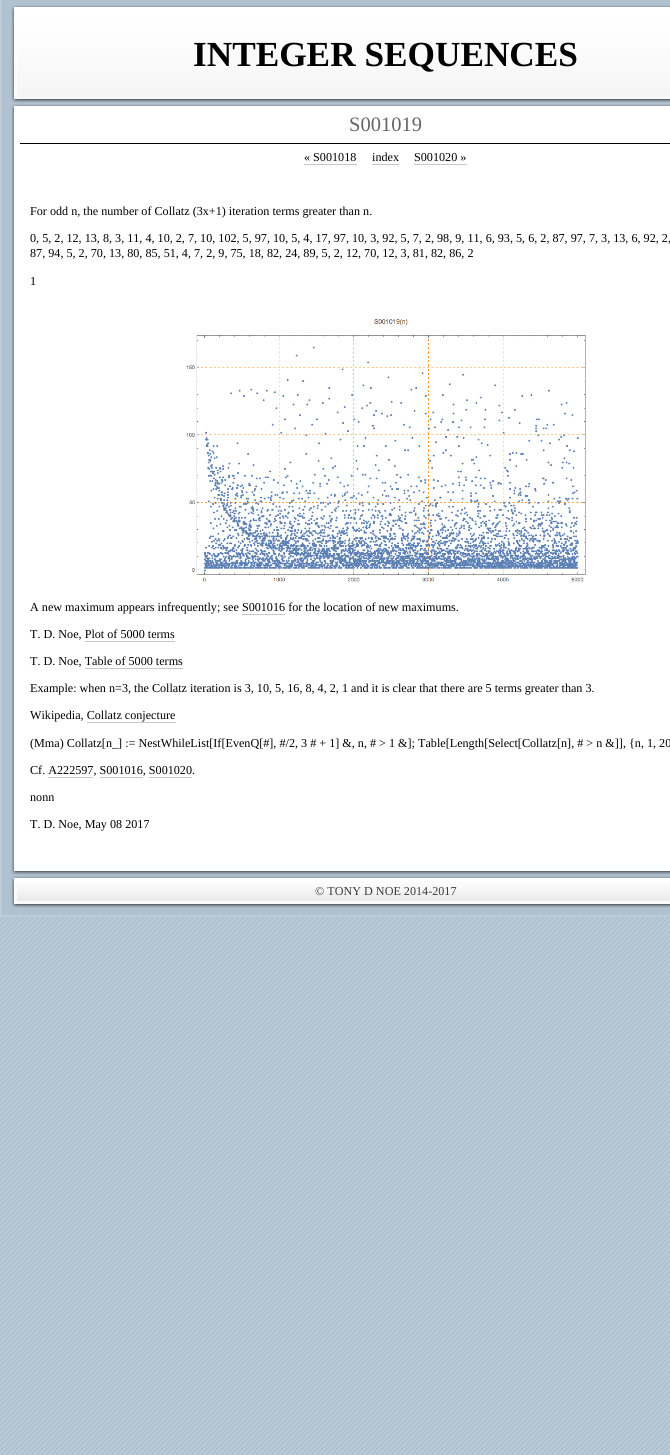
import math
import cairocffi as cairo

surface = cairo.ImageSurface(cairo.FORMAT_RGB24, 670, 1455)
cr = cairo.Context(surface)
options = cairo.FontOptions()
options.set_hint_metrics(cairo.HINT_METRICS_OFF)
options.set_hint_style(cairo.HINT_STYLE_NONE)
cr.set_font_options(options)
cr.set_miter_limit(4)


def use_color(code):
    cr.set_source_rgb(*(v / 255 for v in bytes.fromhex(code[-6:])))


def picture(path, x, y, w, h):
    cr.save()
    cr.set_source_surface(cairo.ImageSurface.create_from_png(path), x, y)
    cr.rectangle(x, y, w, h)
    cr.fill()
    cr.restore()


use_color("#ffffff")
cr.paint()
picture("img1.png", 0, 917, 670, 538)
picture("img2.png", 0, 0, 14, 917)
picture("img3.png", 11, 0, 659, 98)
picture("img4.png", 11, 98, 659, 5)
cr.select_font_face("Liberation Serif", cairo.FONT_SLANT_NORMAL, cairo.FONT_WEIGHT_BOLD)
cr.set_font_size(35.25)
use_color("#000000")
cr.move_to(193, 66)
cr.show_text("INTEGER SEQUENCES")
picture("img5.png", 11, 103, 659, 6)
cr.rectangle(20, 143, 650, 1)
cr.fill()
cr.select_font_face("Liberation Serif")
cr.set_font_size(20.5)
use_color("#666666")
cr.move_to(349, 131)
cr.show_text("S001019")
cr.set_font_size(12.15)
use_color("#000000")
cr.move_to(304, 161)
cr.show_text("« S001018")
use_color("#c8c8c8")
cr.rectangle(304, 164, 53, 1)
cr.fill()
use_color("#000000")
cr.move_to(372, 161)
cr.show_text("index")
use_color("#c8c8c8")
cr.rectangle(372, 164, 27, 1)
cr.fill()
use_color("#000000")
cr.move_to(414, 161)
cr.show_text("S001020 »")
use_color("#c8c8c8")
cr.rectangle(414, 164, 53, 1)
cr.fill()
use_color("#000000")
cr.move_to(30, 215)
cr.show_text("For odd n, the number of Collatz (3x+1) iteration terms greater than n.")
cr.move_to(30, 242)
cr.show_text("0, 5, 2, 12, 13, 8, 3, 11, 4, 10, 2, 7, 10, 102, 5, 97, 10, 5, 4, 17, 97, 10, 3, 92, 5, 7, 2, 98, 9, 11, 6, 93, 5, 6, 2, 87, 97, 7, 3, 13, 6, 92, 2,")
cr.move_to(30, 257)
cr.show_text("87, 94, 5, 2, 70, 13, 80, 85, 51, 4, 7, 2, 9, 75, 18, 82, 24, 89, 5, 2, 12, 70, 12, 3, 81, 82, 86, 2")
cr.move_to(30, 285)
cr.show_text("1")
picture("img6.png", 186, 319, 400, 263)
cr.move_to(30, 611)
cr.show_text("A new maximum appears infrequently; see S001016 for the location of new maximums.")
use_color("#c8c8c8")
cr.rectangle(242, 614, 43, 1)
cr.fill()
use_color("#000000")
cr.move_to(30, 638)
cr.show_text("T. D. Noe, Plot of 5000 terms")
use_color("#c8c8c8")
cr.rectangle(85, 641, 90, 1)
cr.fill()
use_color("#000000")
cr.move_to(30, 665)
cr.show_text("T. D. Noe, Table of 5000 terms")
use_color("#c8c8c8")
cr.rectangle(85, 668, 98, 1)
cr.fill()
use_color("#000000")
cr.move_to(30, 692)
cr.show_text("Example: when n=3, the Collatz iteration is 3, 10, 5, 16, 8, 4, 2, 1 and it is clear that there are 5 terms greater than 3.")
cr.move_to(30, 719)
cr.show_text("Wikipedia, Collatz conjecture")
use_color("#c8c8c8")
cr.rectangle(87, 722, 89, 1)
cr.fill()
use_color("#000000")
cr.move_to(30, 747)
cr.show_text("(Mma) Collatz[n_] := NestWhileList[If[EvenQ[#], #/2, 3 # + 1] &, n, # > 1 &]; Table[Length[Select[Collatz[n], # > n &]], {n, 1, 20")
cr.move_to(30, 774)
cr.show_text("Cf. A222597, S001016, S001020.")
use_color("#c8c8c8")
cr.rectangle(48, 777, 45, 1)
cr.fill()
cr.rectangle(100, 777, 43, 1)
cr.fill()
cr.rectangle(149, 777, 43, 1)
cr.fill()
use_color("#000000")
cr.move_to(30, 801)
cr.show_text("nonn")
cr.move_to(30, 828)
cr.show_text("T. D. Noe, May 08 2017")
picture("img7.png", 2, 870, 668, 47)
use_color("#3d3d3d")
cr.move_to(315, 895)
cr.show_text("© TONY D NOE 2014-2017")
surface.write_to_png("result.png")
